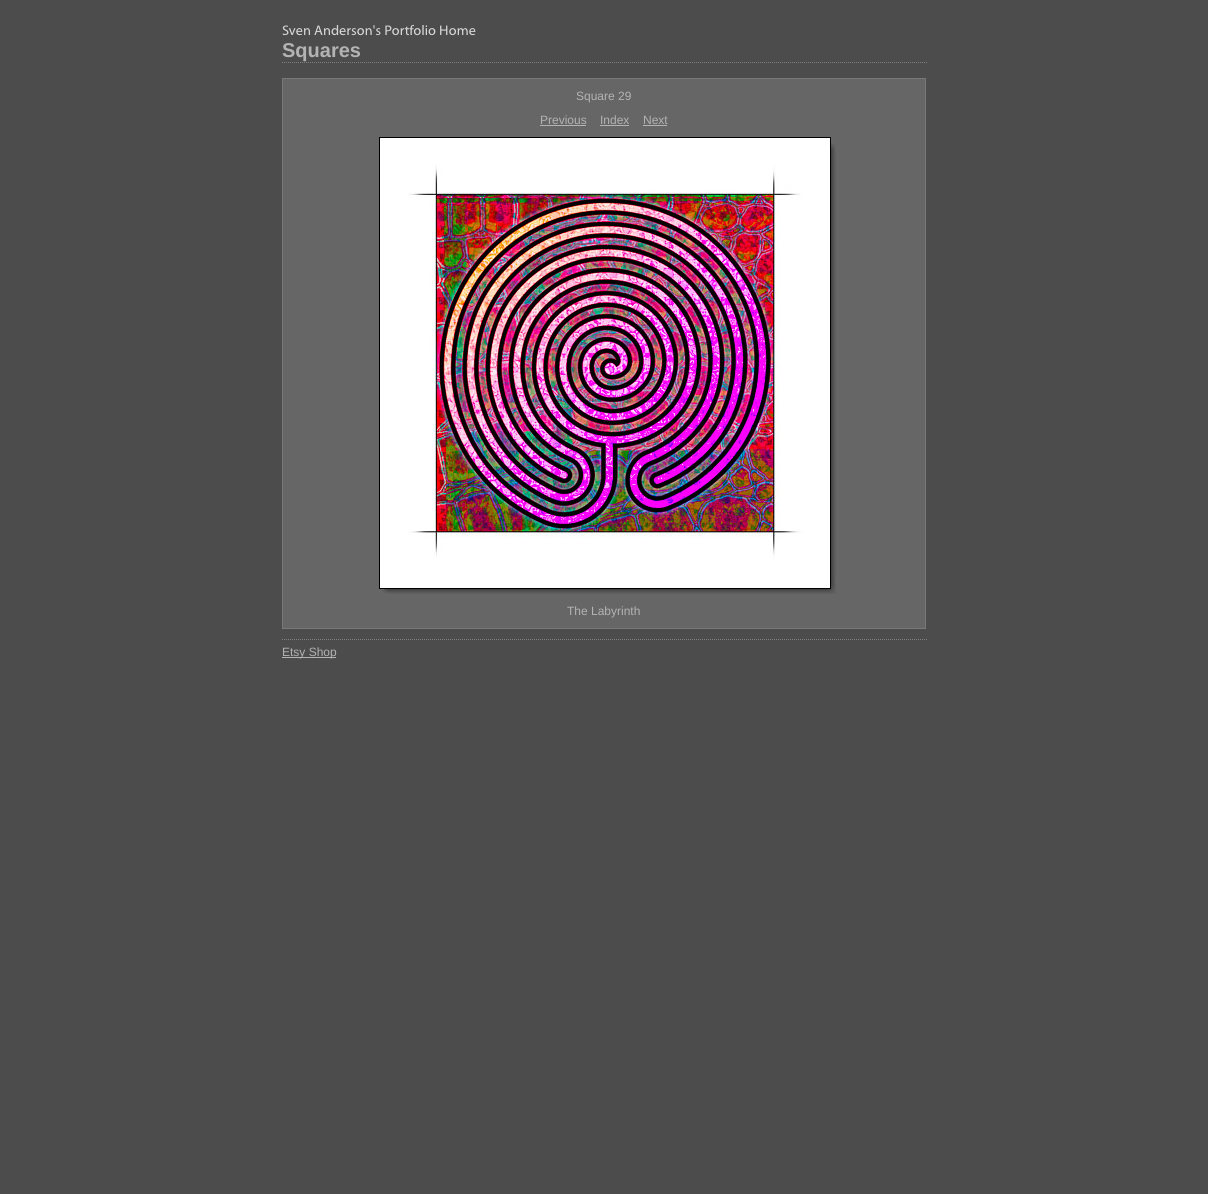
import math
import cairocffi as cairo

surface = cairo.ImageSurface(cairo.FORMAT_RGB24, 1208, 1194)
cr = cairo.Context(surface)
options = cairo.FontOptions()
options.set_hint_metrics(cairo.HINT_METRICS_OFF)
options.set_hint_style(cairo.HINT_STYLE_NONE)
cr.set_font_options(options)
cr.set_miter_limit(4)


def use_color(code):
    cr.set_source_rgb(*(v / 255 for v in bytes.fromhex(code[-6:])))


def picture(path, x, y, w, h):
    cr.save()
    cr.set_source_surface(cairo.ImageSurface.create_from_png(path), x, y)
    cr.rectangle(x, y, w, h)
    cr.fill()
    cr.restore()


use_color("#4c4c4c")
cr.paint()
picture("img1.png", 282, 24, 194, 12)
cr.new_path()
cr.move_to(282, 62.5)
cr.line_to(927, 62.5)
use_color("#7f7f7f")
cr.set_line_width(1)
cr.set_dash([1, 1])
cr.stroke()
cr.select_font_face("Liberation Sans", cairo.FONT_SLANT_NORMAL, cairo.FONT_WEIGHT_BOLD)
cr.set_font_size(20)
use_color("#b3b3b3")
cr.move_to(282, 57)
cr.show_text("Squares")
cr.new_path()
cr.move_to(282, 639.5)
cr.line_to(927, 639.5)
use_color("#7f7f7f")
cr.stroke()
use_color("#666666")
cr.rectangle(282.5, 78.5, 643, 550)
cr.fill_preserve()
use_color("#787878")
cr.set_dash([])
cr.stroke()
cr.select_font_face("Liberation Sans")
cr.set_font_size(12)
use_color("#b3b3b3")
cr.move_to(576, 100)
cr.show_text("Square 29")
cr.move_to(540, 124)
cr.show_text("Previous")
cr.rectangle(540, 125, 46, 1)
cr.fill()
cr.move_to(600, 124)
cr.show_text("Index")
cr.rectangle(600, 125, 29, 1)
cr.fill()
cr.move_to(643, 124)
cr.show_text("Next")
cr.rectangle(643, 125, 24, 1)
cr.fill()
picture("img2.png", 389, 150, 447, 444)
cr.rectangle(379.5, 137.5, 451, 451)
use_color("#000000")
cr.stroke()
picture("img3.png", 380, 138, 450, 450)
picture("img4.png", 831, 143, 5, 7)
picture("img5.png", 382, 589, 7, 5)
use_color("#b3b3b3")
cr.move_to(567, 615)
cr.show_text("The Labyrinth")
cr.rectangle(282, 657, 54, 1)
cr.fill()
cr.move_to(282, 656)
cr.show_text("Etsy Shop")
surface.write_to_png("result.png")
